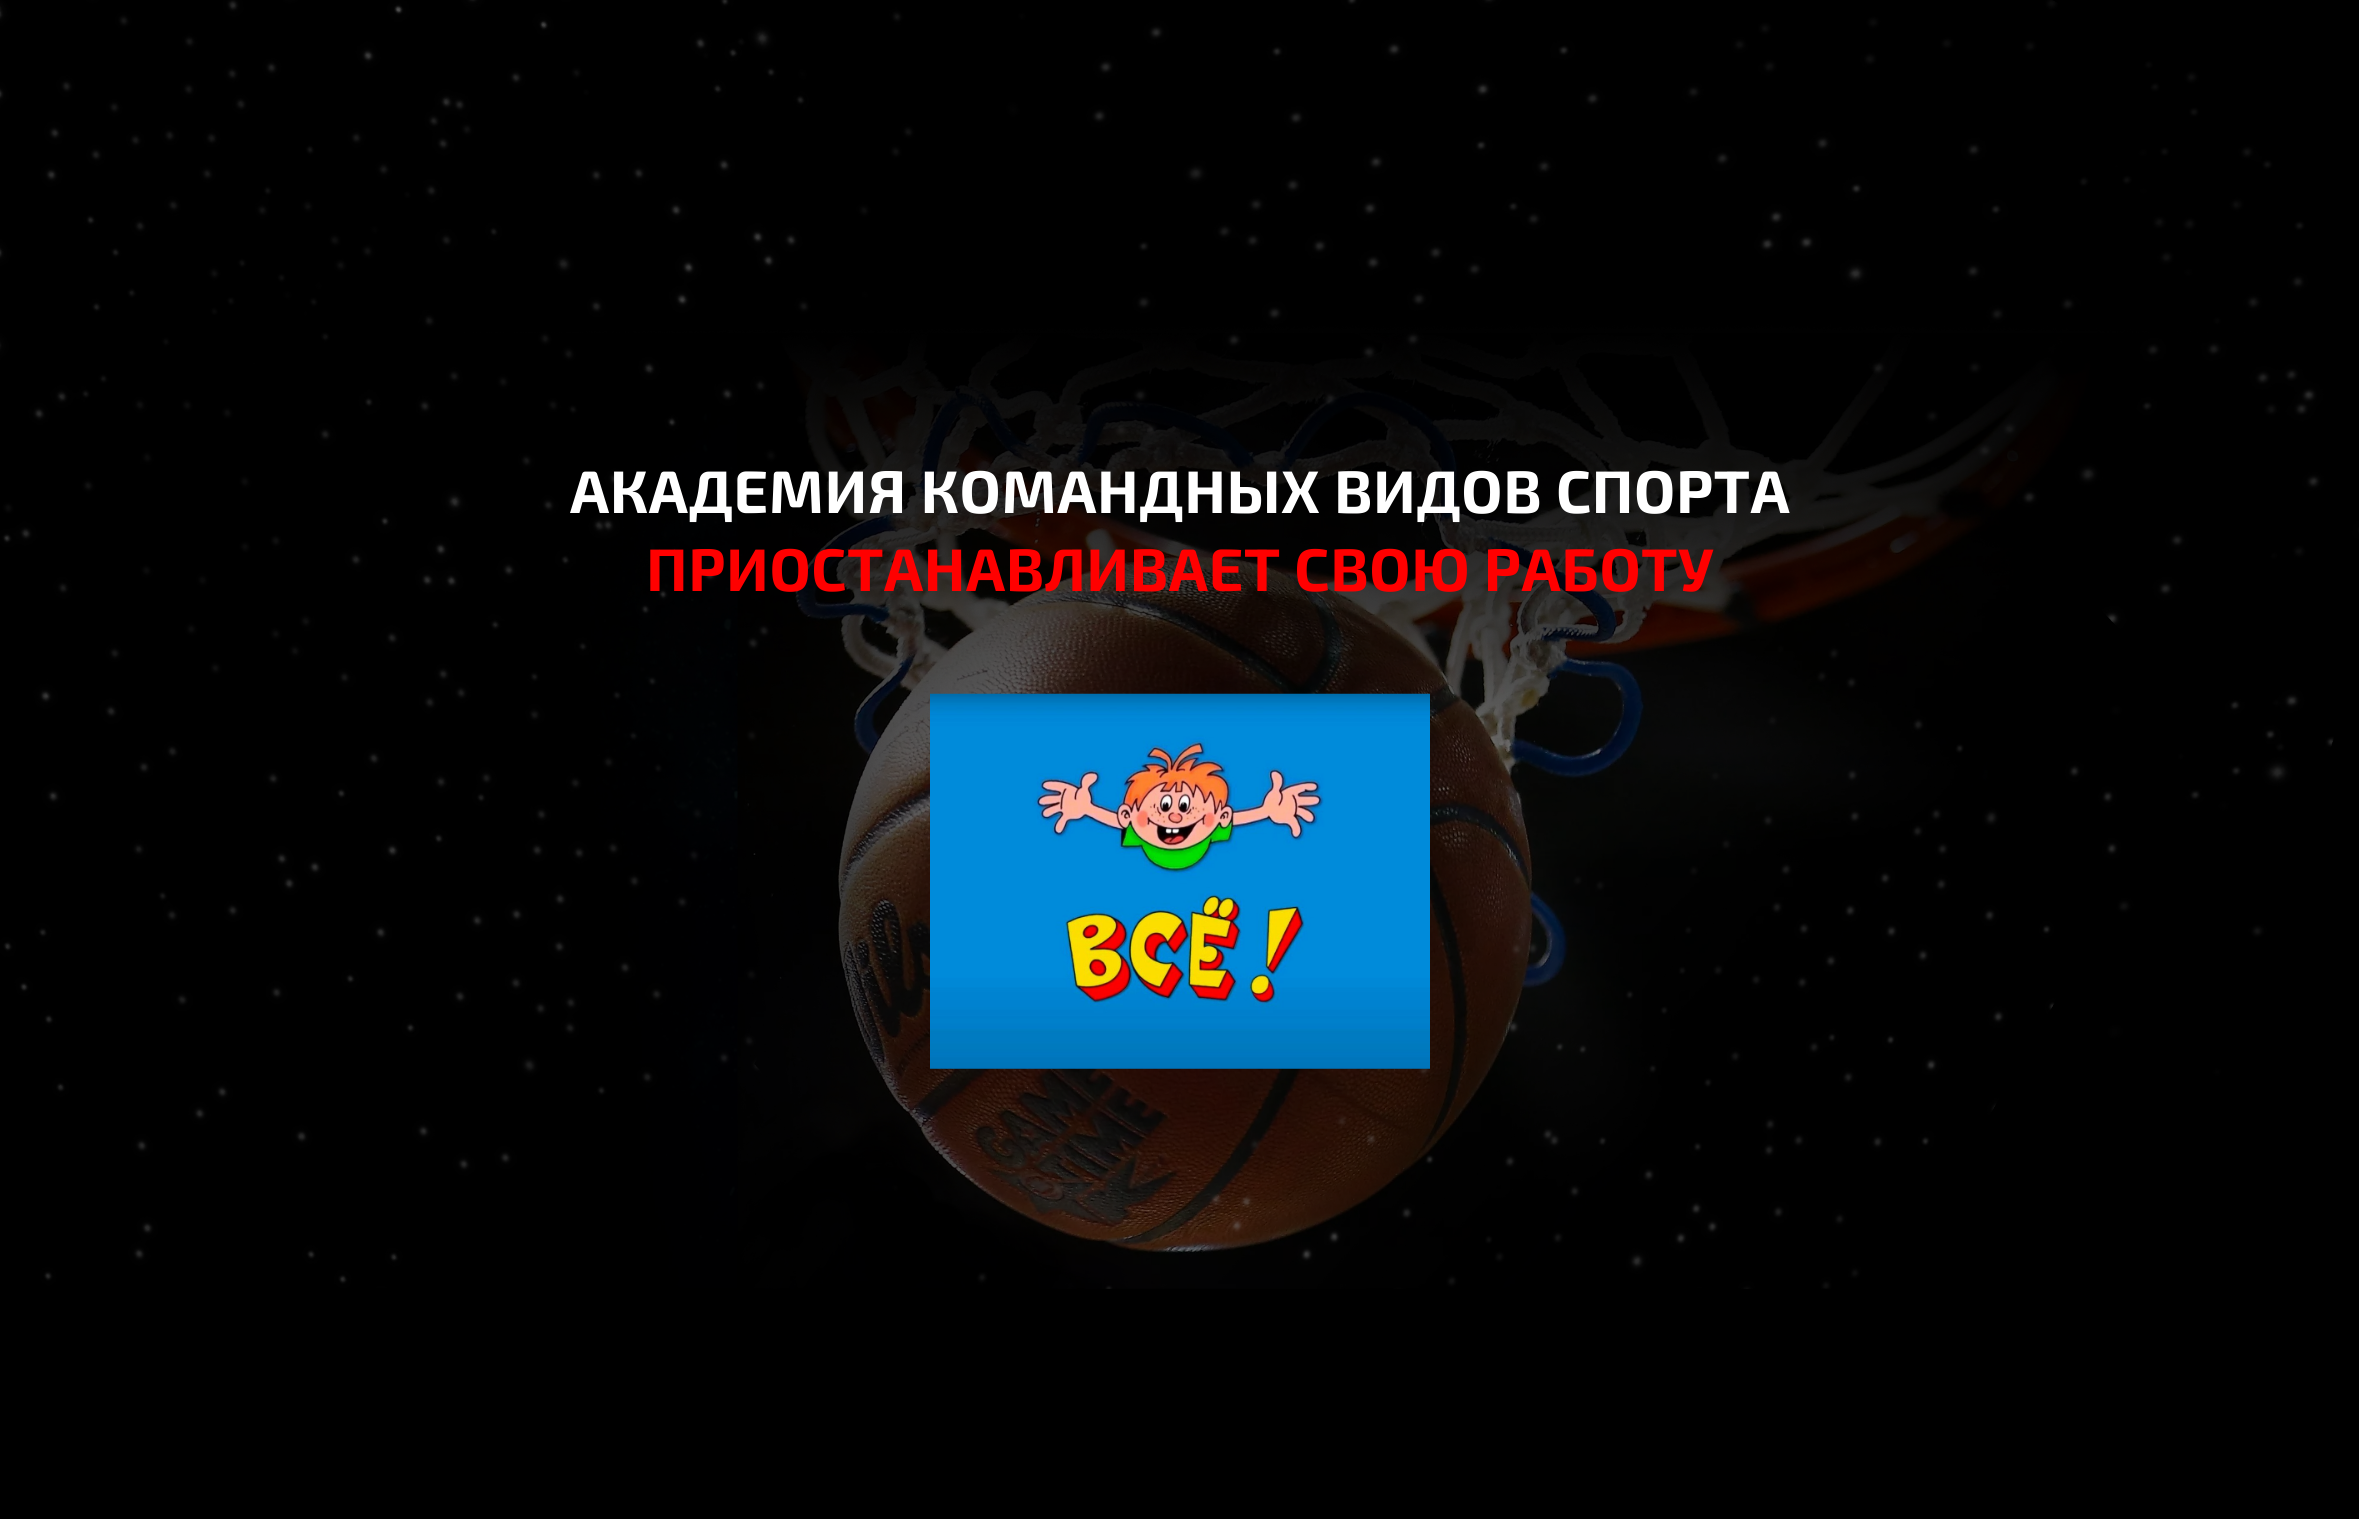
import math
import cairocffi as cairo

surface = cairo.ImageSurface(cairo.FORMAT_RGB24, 2359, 1519)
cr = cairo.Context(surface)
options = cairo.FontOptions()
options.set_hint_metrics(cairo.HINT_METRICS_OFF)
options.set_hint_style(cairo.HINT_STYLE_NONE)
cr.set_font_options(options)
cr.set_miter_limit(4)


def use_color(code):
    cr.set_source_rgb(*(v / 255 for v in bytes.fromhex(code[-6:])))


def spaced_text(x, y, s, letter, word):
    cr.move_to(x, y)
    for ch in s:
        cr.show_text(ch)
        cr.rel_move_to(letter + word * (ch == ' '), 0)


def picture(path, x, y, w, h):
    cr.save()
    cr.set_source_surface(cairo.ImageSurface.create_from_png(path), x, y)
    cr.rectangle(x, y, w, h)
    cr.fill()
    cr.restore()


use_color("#000000")
cr.paint()
picture("img1.png", 0, 0, 2359, 1289)
cr.select_font_face("Exo 2", cairo.FONT_SLANT_NORMAL, cairo.FONT_WEIGHT_BOLD)
cr.set_font_size(60)
use_color("#ffffff")
spaced_text(570, 513, "АКАДЕМИЯ КОМАНДНЫХ ВИДОВ СПОРТА", 0.6, 0)
use_color("#ff0000")
spaced_text(646, 591, "ПРИОСТАНАВЛИВАЕТ СВОЮ РАБОТУ", 0.6, 0)
picture("img2.png", 930, 693, 500, 376)
surface.write_to_png("result.png")
